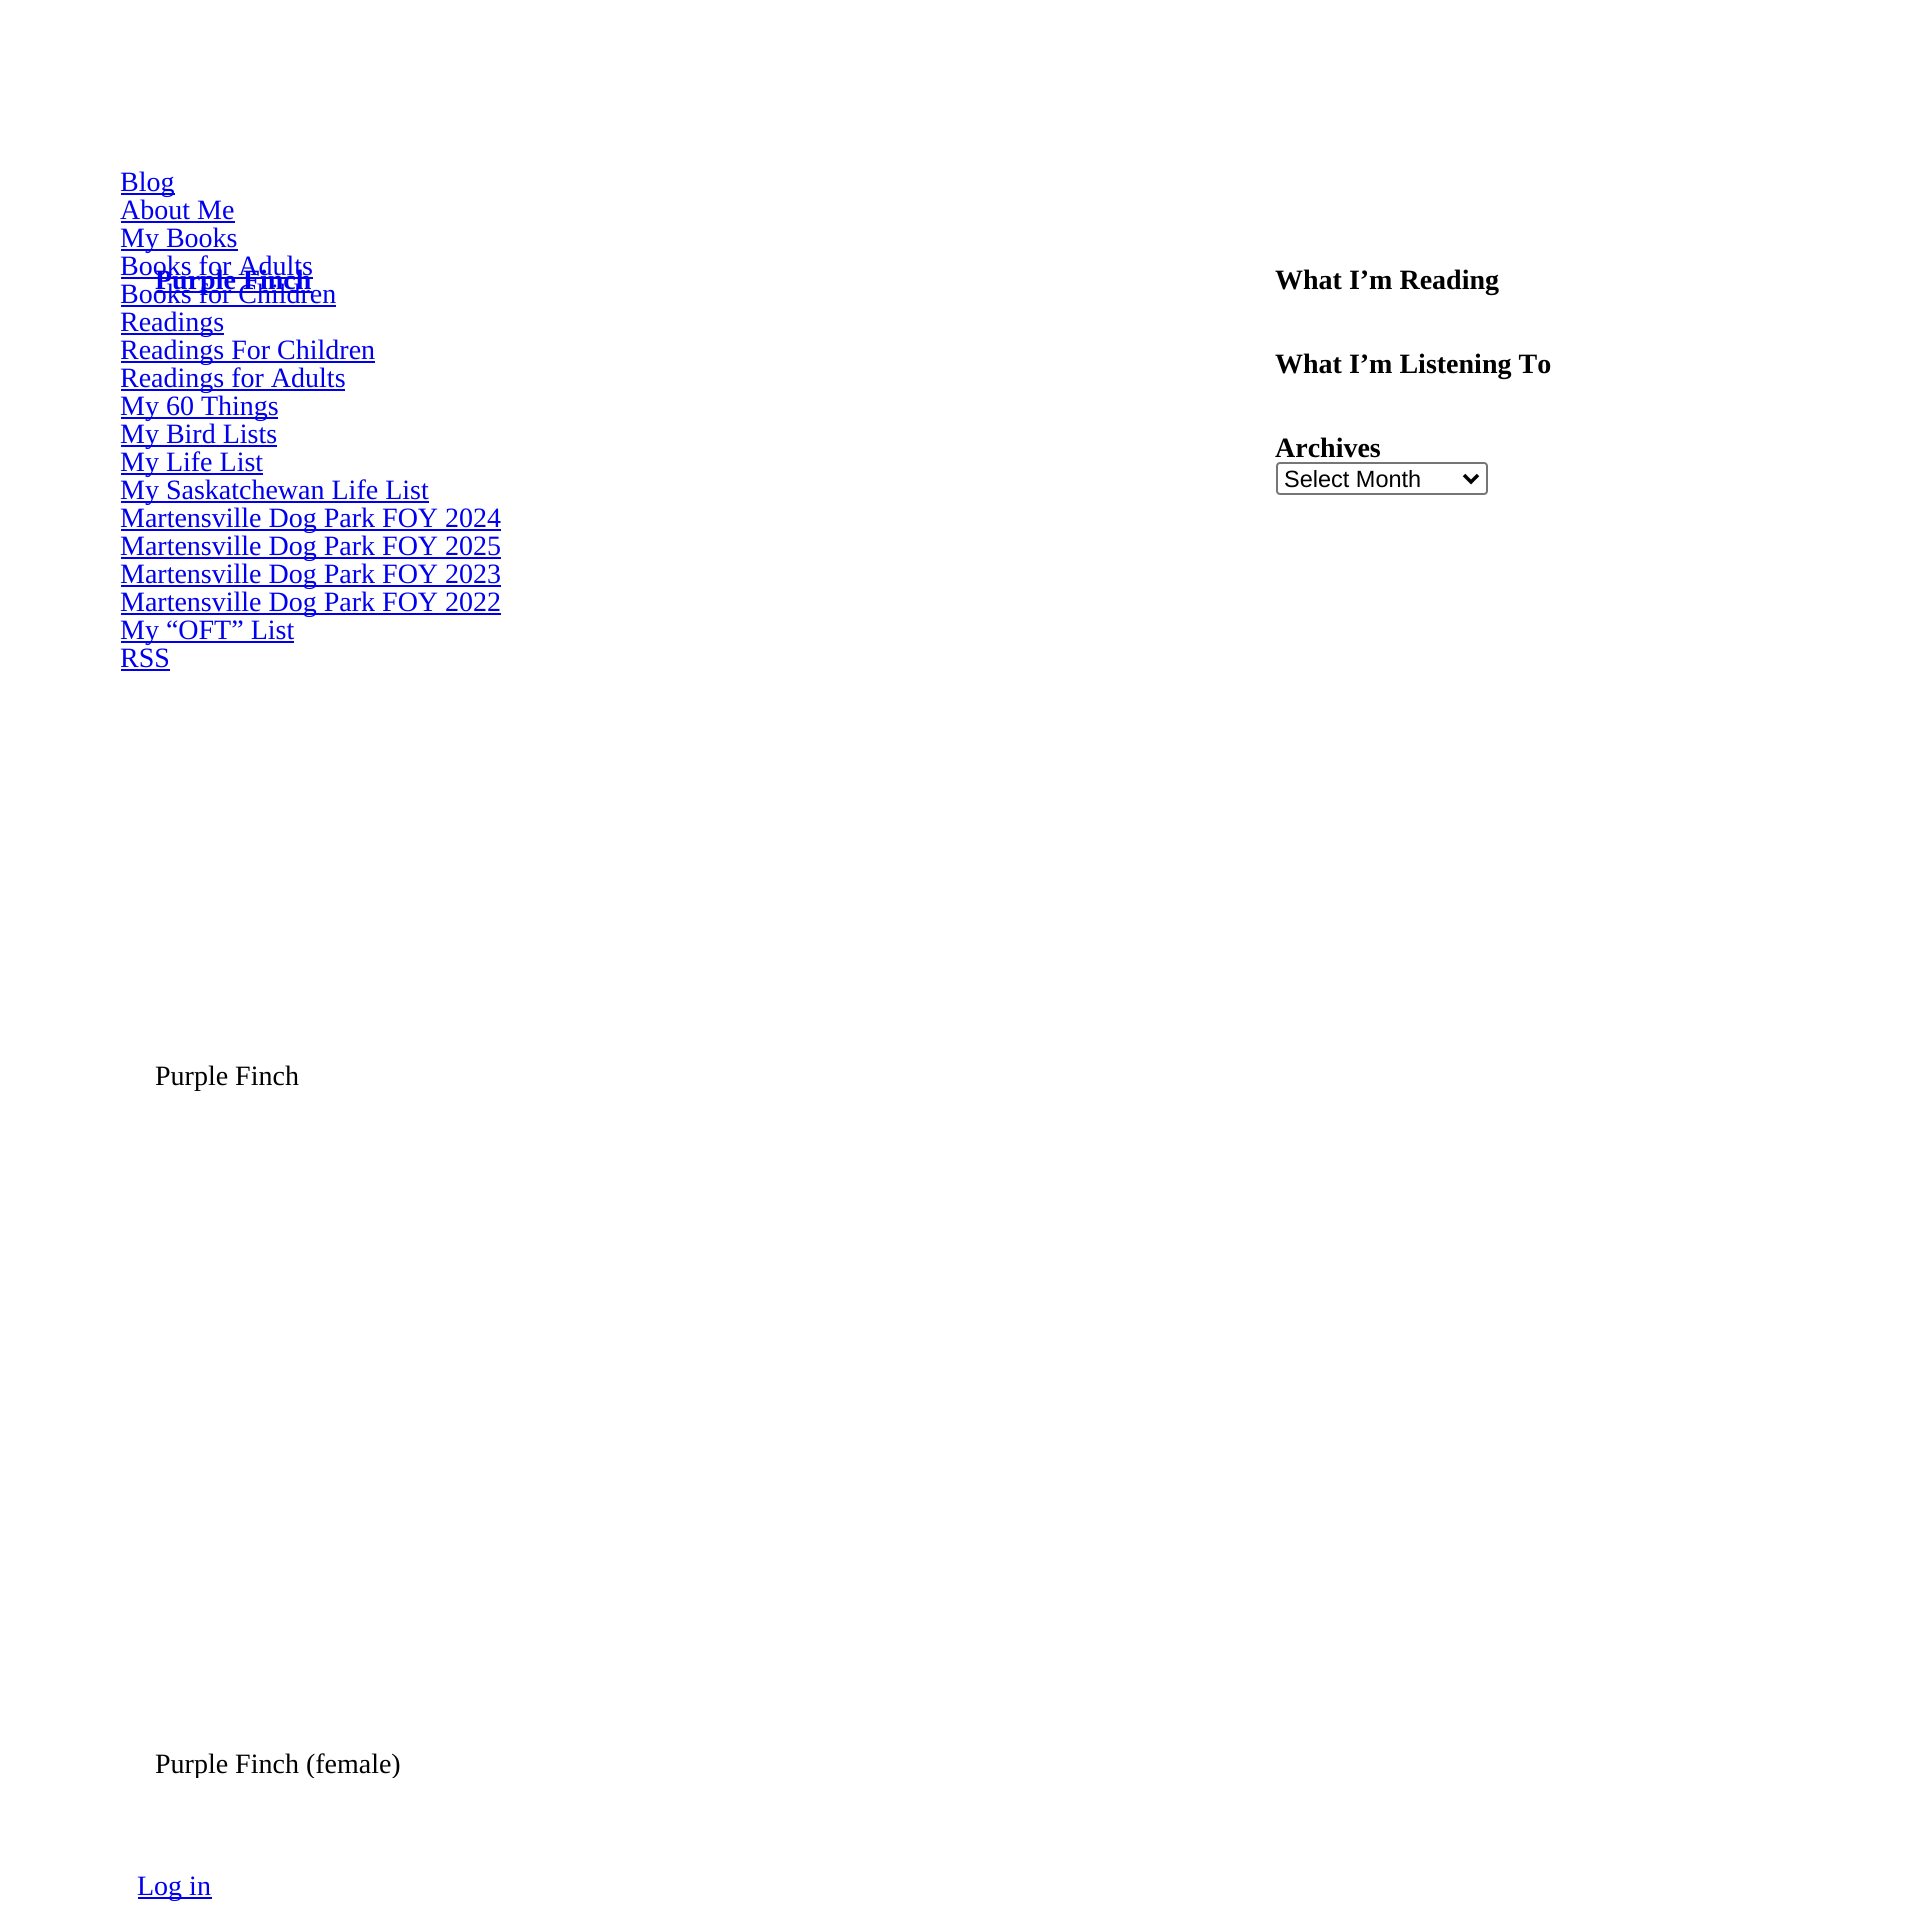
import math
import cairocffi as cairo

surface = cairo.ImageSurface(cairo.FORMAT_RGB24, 1919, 1907)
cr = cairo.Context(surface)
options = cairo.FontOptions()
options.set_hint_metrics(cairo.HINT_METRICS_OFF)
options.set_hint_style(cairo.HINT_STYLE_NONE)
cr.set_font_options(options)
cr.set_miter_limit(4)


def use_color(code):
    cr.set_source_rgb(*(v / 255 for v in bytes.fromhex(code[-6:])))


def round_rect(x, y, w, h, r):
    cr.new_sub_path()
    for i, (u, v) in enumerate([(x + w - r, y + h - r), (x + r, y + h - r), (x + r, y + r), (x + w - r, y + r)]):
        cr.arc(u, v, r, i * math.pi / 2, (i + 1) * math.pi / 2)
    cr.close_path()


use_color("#ffffff")
cr.paint()
use_color("#0000ee")
cr.rectangle(121, 193, 54, 2)
cr.fill()
cr.select_font_face("Liberation Serif")
cr.set_font_size(28)
cr.move_to(120, 191)
cr.show_text("Blog")
cr.move_to(120, 219)
cr.show_text("About Me")
cr.rectangle(121, 221, 114, 2)
cr.fill()
cr.rectangle(121, 249, 117, 2)
cr.fill()
cr.move_to(120, 247)
cr.show_text("My Books")
cr.move_to(120, 275)
cr.show_text("Books for Adults")
cr.rectangle(121, 277, 192, 2)
cr.fill()
cr.move_to(120, 303)
cr.show_text("Books for Children")
cr.rectangle(121, 305, 215, 2)
cr.fill()
cr.rectangle(121, 333, 103, 2)
cr.fill()
cr.move_to(120, 331)
cr.show_text("Readings")
cr.rectangle(121, 361, 254, 2)
cr.fill()
cr.move_to(120, 359)
cr.show_text("Readings For Children")
cr.rectangle(121, 389, 224, 2)
cr.fill()
cr.move_to(120, 387)
cr.show_text("Readings for Adults")
cr.rectangle(121, 417, 157, 2)
cr.fill()
cr.move_to(120, 415)
cr.show_text("My 60 Things")
cr.rectangle(121, 445, 156, 2)
cr.fill()
cr.move_to(120, 443)
cr.show_text("My Bird Lists")
cr.rectangle(121, 473, 142, 2)
cr.fill()
cr.move_to(120, 471)
cr.show_text("My Life List")
cr.rectangle(121, 501, 308, 2)
cr.fill()
cr.move_to(120, 499)
cr.show_text("My Saskatchewan Life List")
cr.rectangle(121, 529, 380, 2)
cr.fill()
cr.move_to(120, 527)
cr.show_text("Martensville Dog Park FOY 2024")
cr.rectangle(121, 557, 380, 2)
cr.fill()
cr.move_to(120, 555)
cr.show_text("Martensville Dog Park FOY 2025")
cr.rectangle(121, 585, 380, 2)
cr.fill()
cr.move_to(120, 583)
cr.show_text("Martensville Dog Park FOY 2023")
cr.rectangle(121, 613, 380, 2)
cr.fill()
cr.move_to(120, 611)
cr.show_text("Martensville Dog Park FOY 2022")
cr.rectangle(121, 641, 173, 2)
cr.fill()
cr.move_to(120, 639)
cr.show_text("My “OFT” List")
cr.move_to(120, 667)
cr.show_text("RSS")
cr.rectangle(121, 669, 49, 2)
cr.fill()
cr.rectangle(156, 291, 156, 2)
cr.fill()
cr.select_font_face("Liberation Serif", cairo.FONT_SLANT_NORMAL, cairo.FONT_WEIGHT_BOLD)
cr.move_to(155, 289)
cr.show_text("Purple Finch")
cr.select_font_face("Liberation Serif")
use_color("#000000")
cr.move_to(155, 1085)
cr.show_text("Purple Finch")
cr.save()
cr.rectangle(121, 266, 1120, 1512)
cr.clip()
cr.move_to(155, 1773)
cr.show_text("Purple Finch (female)")
cr.restore()
cr.select_font_face("Liberation Serif", cairo.FONT_SLANT_NORMAL, cairo.FONT_WEIGHT_BOLD)
cr.move_to(1275, 289)
cr.show_text("What I’m Reading")
cr.move_to(1275, 373)
cr.show_text("What I’m Listening To")
cr.move_to(1275, 457)
cr.show_text("Archives")
round_rect(1277, 463, 210, 31, 3)
use_color("#767676")
cr.stroke()
cr.new_path()
cr.move_to(1464, 475)
cr.line_to(1471, 482)
cr.line_to(1478, 475)
use_color("#000000")
cr.set_line_width(3.5)
cr.stroke()
cr.select_font_face("Liberation Sans")
cr.set_font_size(23.5)
cr.move_to(1284, 487)
cr.show_text("Select Month")
use_color("#0000ee")
cr.rectangle(138, 1897, 74, 2)
cr.fill()
cr.select_font_face("Liberation Serif")
cr.set_font_size(28)
cr.move_to(137, 1895)
cr.show_text("Log in")
surface.write_to_png("result.png")
